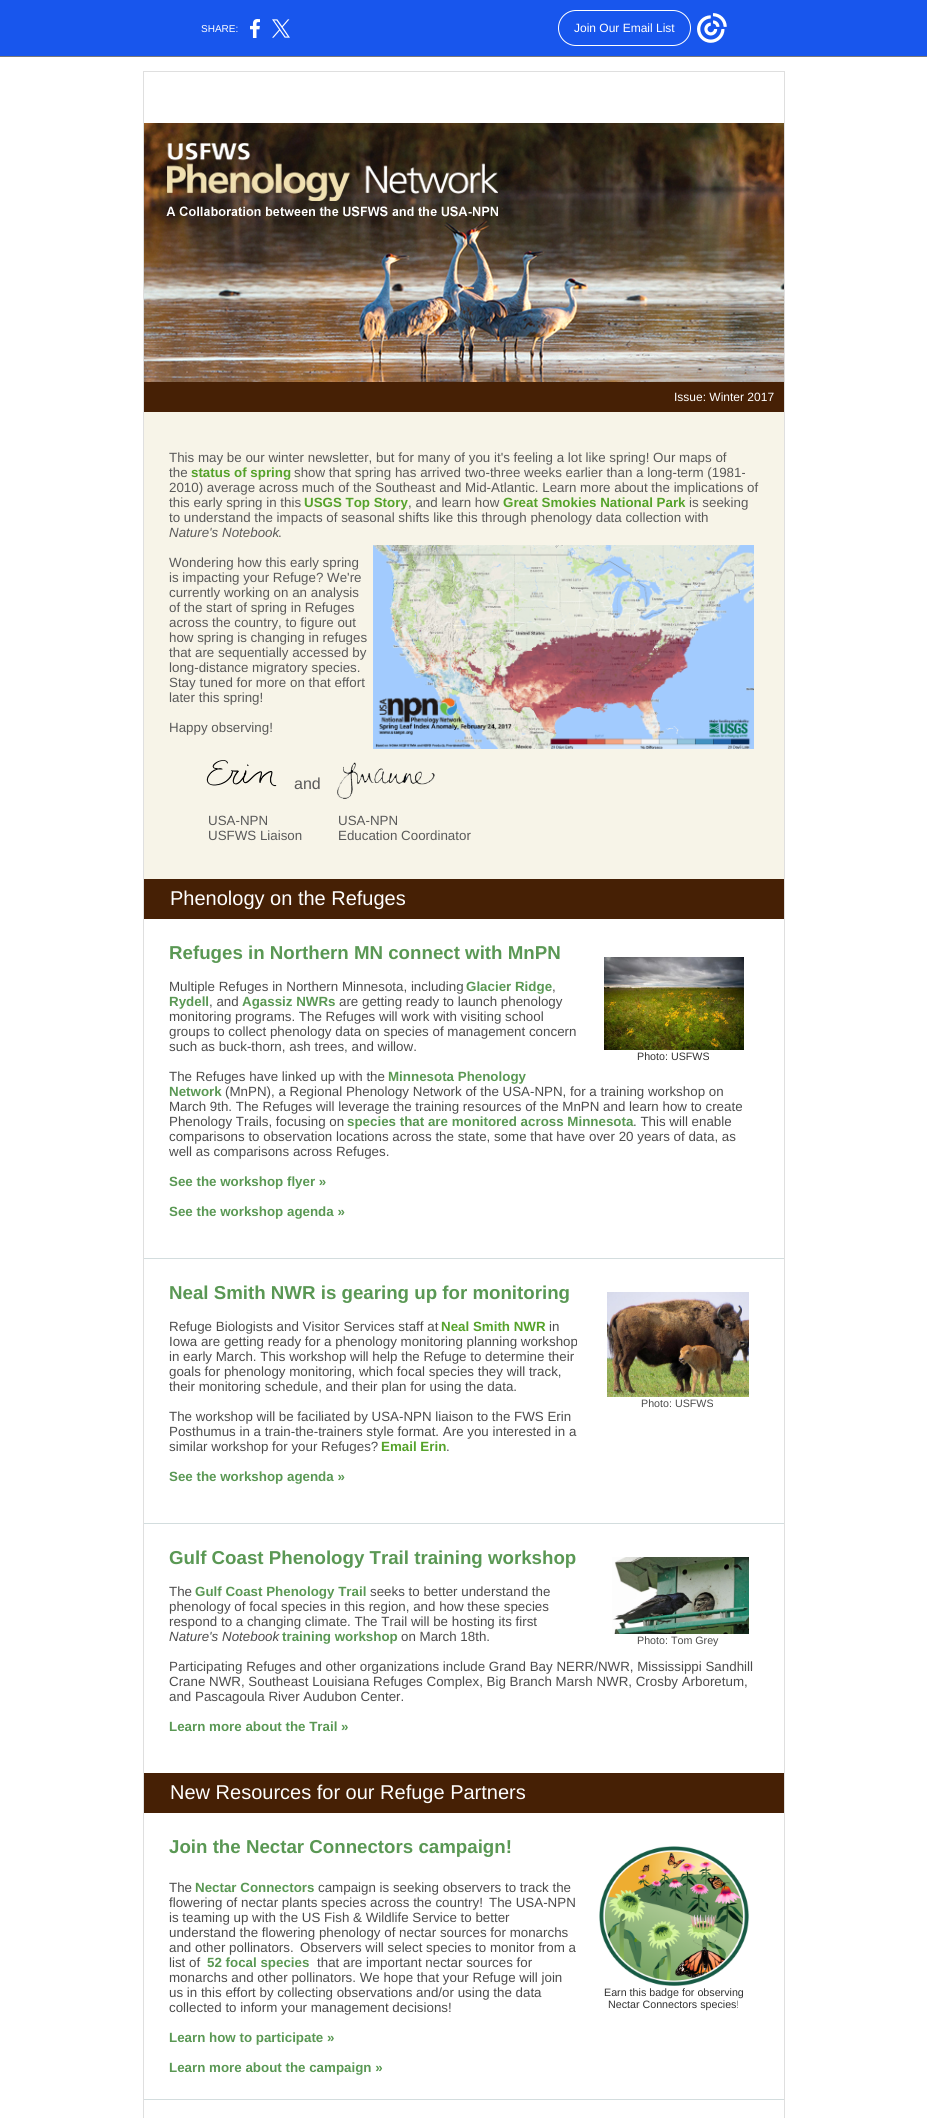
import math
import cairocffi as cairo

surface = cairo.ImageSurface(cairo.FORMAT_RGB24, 927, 2118)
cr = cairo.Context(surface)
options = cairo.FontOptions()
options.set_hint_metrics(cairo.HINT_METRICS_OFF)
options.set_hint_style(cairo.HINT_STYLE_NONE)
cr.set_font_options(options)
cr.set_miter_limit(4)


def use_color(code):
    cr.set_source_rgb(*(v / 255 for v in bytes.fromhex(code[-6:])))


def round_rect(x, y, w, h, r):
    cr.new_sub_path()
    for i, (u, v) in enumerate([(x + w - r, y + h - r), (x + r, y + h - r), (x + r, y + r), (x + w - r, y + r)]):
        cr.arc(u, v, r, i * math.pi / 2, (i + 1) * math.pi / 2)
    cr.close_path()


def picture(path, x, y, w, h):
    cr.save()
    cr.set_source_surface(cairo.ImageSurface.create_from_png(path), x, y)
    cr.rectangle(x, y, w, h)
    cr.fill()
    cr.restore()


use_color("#ffffff")
cr.paint()
use_color("#1856ed")
cr.rectangle(0, 0, 927, 56)
cr.fill()
use_color("#7a7a7a")
cr.rectangle(0, 56, 927, 1)
cr.fill()
cr.select_font_face("Liberation Sans")
cr.set_font_size(10)
use_color("#ffffff")
cr.move_to(201, 32)
cr.show_text("SHARE:")
picture("img1.png", 250, 19, 10, 19)
picture("img2.png", 272, 19, 18, 19)
round_rect(558.5, 10.5, 132, 35, 17.5)
cr.set_line_width(1)
cr.stroke()
cr.set_font_size(12)
cr.move_to(574, 32)
cr.show_text("Join Our Email List")
picture("img3.png", 697, 13, 30, 30)
use_color("#dfdfdf")
cr.rectangle(143, 71, 642, 2047)
cr.fill()
use_color("#ffffff")
cr.rectangle(144, 72, 640, 2046)
cr.fill()
picture("img4.png", 144, 123, 640, 259)
use_color("#462005")
cr.rectangle(144, 382, 640, 30)
cr.fill()
use_color("#ffffff")
cr.move_to(674, 401)
cr.show_text("Issue: Winter 2017")
use_color("#f7f4e8")
cr.rectangle(144, 412, 640, 467)
cr.fill()
cr.set_font_size(13.35)
use_color("#595959")
cr.move_to(169, 462)
cr.show_text("This may be our winter newsletter, but for many of you it's feeling a lot like spring! Our maps of")
cr.move_to(169, 477)
cr.show_text("the")
cr.select_font_face("Liberation Sans", cairo.FONT_SLANT_NORMAL, cairo.FONT_WEIGHT_BOLD)
use_color("#55a22a")
cr.move_to(191, 477)
cr.show_text("status of spring")
cr.select_font_face("Liberation Sans")
use_color("#595959")
cr.move_to(294, 477)
cr.show_text("show that spring has arrived two-three weeks earlier than a long-term (1981-")
cr.move_to(169, 492)
cr.show_text("2010) average across much of the Southeast and Mid-Atlantic. Learn more about the implications of")
cr.move_to(169, 507)
cr.show_text("this early spring in this")
cr.select_font_face("Liberation Sans", cairo.FONT_SLANT_NORMAL, cairo.FONT_WEIGHT_BOLD)
use_color("#55a22a")
cr.move_to(304, 507)
cr.show_text("USGS Top Story")
cr.select_font_face("Liberation Sans")
use_color("#595959")
cr.move_to(408, 507)
cr.show_text(", and learn how")
cr.select_font_face("Liberation Sans", cairo.FONT_SLANT_NORMAL, cairo.FONT_WEIGHT_BOLD)
use_color("#55a22a")
cr.move_to(503, 507)
cr.show_text("Great Smokies National Park")
cr.select_font_face("Liberation Sans")
use_color("#595959")
cr.move_to(689, 507)
cr.show_text("is seeking")
cr.move_to(169, 522)
cr.show_text("to understand the impacts of seasonal shifts like this through phenology data collection with")
cr.select_font_face("Liberation Sans", cairo.FONT_SLANT_ITALIC)
cr.move_to(169, 537)
cr.show_text("Nature's Notebook")
cr.select_font_face("Liberation Sans")
cr.move_to(278, 537)
cr.show_text(".")
cr.move_to(169, 567)
cr.show_text("Wondering how this early spring")
cr.move_to(169, 582)
cr.show_text("is impacting your Refuge? We're")
cr.move_to(169, 597)
cr.show_text("currently working on an analysis")
cr.move_to(169, 612)
cr.show_text("of the start of spring in Refuges")
cr.move_to(169, 627)
cr.show_text("across the country, to figure out")
cr.move_to(169, 642)
cr.show_text("how spring is changing in refuges")
cr.move_to(169, 657)
cr.show_text("that are sequentially accessed by")
cr.move_to(169, 672)
cr.show_text("long-distance migratory species.")
cr.move_to(169, 687)
cr.show_text("Stay tuned for more on that effort")
cr.move_to(169, 702)
cr.show_text("later this spring!")
picture("img5.png", 373, 545, 381, 204)
cr.move_to(169, 732)
cr.show_text("Happy observing!")
picture("img6.png", 206, 760, 71, 27)
cr.set_font_size(16)
cr.move_to(294, 789)
cr.show_text("and")
picture("img7.png", 337, 762, 98, 37)
cr.set_font_size(13.35)
cr.move_to(208, 825)
cr.show_text("USA-NPN")
cr.move_to(208, 840)
cr.show_text("USFWS Liaison")
cr.move_to(338, 825)
cr.show_text("USA-NPN")
cr.move_to(338, 840)
cr.show_text("Education Coordinator")
use_color("#462005")
cr.rectangle(144, 879, 640, 40)
cr.fill()
cr.set_font_size(20)
use_color("#ffffff")
cr.move_to(170, 905)
cr.show_text("Phenology on the Refuges")
cr.select_font_face("Liberation Sans", cairo.FONT_SLANT_NORMAL, cairo.FONT_WEIGHT_BOLD)
cr.set_font_size(18.7)
use_color("#5a9854")
cr.move_to(169, 959)
cr.show_text("Refuges in Northern MN connect with MnPN")
cr.select_font_face("Liberation Sans")
cr.set_font_size(13.35)
use_color("#4c4c4c")
cr.move_to(169, 991)
cr.show_text("Multiple Refuges in Northern Minnesota, including")
cr.select_font_face("Liberation Sans", cairo.FONT_SLANT_NORMAL, cairo.FONT_WEIGHT_BOLD)
use_color("#5a9854")
cr.move_to(466, 991)
cr.show_text("Glacier Ridge")
cr.select_font_face("Liberation Sans")
use_color("#4c4c4c")
cr.move_to(552, 991)
cr.show_text(",")
cr.select_font_face("Liberation Sans", cairo.FONT_SLANT_NORMAL, cairo.FONT_WEIGHT_BOLD)
use_color("#5a9854")
cr.move_to(169, 1006)
cr.show_text("Rydell")
cr.select_font_face("Liberation Sans")
use_color("#4c4c4c")
cr.move_to(209, 1006)
cr.show_text(", and")
cr.select_font_face("Liberation Sans", cairo.FONT_SLANT_NORMAL, cairo.FONT_WEIGHT_BOLD)
use_color("#5a9854")
cr.move_to(242, 1006)
cr.show_text("Agassiz NWRs")
cr.select_font_face("Liberation Sans")
use_color("#4c4c4c")
cr.move_to(339, 1006)
cr.show_text("are getting ready to launch phenology")
cr.move_to(169, 1021)
cr.show_text("monitoring programs. The Refuges will work with visiting school")
cr.move_to(169, 1036)
cr.show_text("groups to collect phenology data on species of management concern")
cr.move_to(169, 1051)
cr.show_text("such as buck-thorn, ash trees, and willow.")
cr.move_to(169, 1081)
cr.show_text("The Refuges have linked up with the")
cr.select_font_face("Liberation Sans", cairo.FONT_SLANT_NORMAL, cairo.FONT_WEIGHT_BOLD)
use_color("#5a9854")
cr.move_to(388, 1081)
cr.show_text("Minnesota Phenology")
cr.move_to(169, 1096)
cr.show_text("Network")
cr.select_font_face("Liberation Sans")
use_color("#4c4c4c")
cr.move_to(225, 1096)
cr.show_text("(MnPN), a Regional Phenology Network of the USA-NPN, for a training workshop on")
cr.move_to(169, 1111)
cr.show_text("March 9th. The Refuges will leverage the training resources of the MnPN and learn how to create")
cr.move_to(169, 1126)
cr.show_text("Phenology Trails, focusing on")
cr.select_font_face("Liberation Sans", cairo.FONT_SLANT_NORMAL, cairo.FONT_WEIGHT_BOLD)
use_color("#5a9854")
cr.move_to(347, 1126)
cr.show_text("species that are monitored across Minnesota")
cr.select_font_face("Liberation Sans")
use_color("#4c4c4c")
cr.move_to(633, 1126)
cr.show_text(". This will enable")
cr.move_to(169, 1141)
cr.show_text("comparisons to observation locations across the state, some that have over 20 years of data, as")
cr.move_to(169, 1156)
cr.show_text("well as comparisons across Refuges.")
cr.select_font_face("Liberation Sans", cairo.FONT_SLANT_NORMAL, cairo.FONT_WEIGHT_BOLD)
use_color("#5a9854")
cr.move_to(169, 1186)
cr.show_text("See the workshop flyer »")
picture("img8.png", 604, 957, 140, 93)
cr.select_font_face("Liberation Sans")
cr.set_font_size(10.7)
use_color("#323232")
cr.move_to(637, 1060)
cr.show_text("Photo: USFWS")
cr.select_font_face("Liberation Sans", cairo.FONT_SLANT_NORMAL, cairo.FONT_WEIGHT_BOLD)
cr.set_font_size(13.35)
use_color("#5a9854")
cr.move_to(169, 1216)
cr.show_text("See the workshop agenda »")
use_color("#d3ddde")
cr.rectangle(144, 1258, 640, 1)
cr.fill()
cr.set_font_size(18.7)
use_color("#5a9854")
cr.move_to(169, 1299)
cr.show_text("Neal Smith NWR is gearing up for monitoring")
cr.select_font_face("Liberation Sans")
cr.set_font_size(13.35)
use_color("#4c4c4c")
cr.move_to(169, 1331)
cr.show_text("Refuge Biologists and Visitor Services staff at")
cr.select_font_face("Liberation Sans", cairo.FONT_SLANT_NORMAL, cairo.FONT_WEIGHT_BOLD)
use_color("#55a22a")
cr.move_to(441, 1331)
cr.show_text("Neal Smith NWR")
cr.select_font_face("Liberation Sans")
use_color("#4c4c4c")
cr.move_to(549, 1331)
cr.show_text("in")
cr.move_to(169, 1346)
cr.show_text("Iowa are getting ready for a phenology monitoring planning workshop")
cr.move_to(169, 1361)
cr.show_text("in early March. This workshop will help the Refuge to determine their")
cr.move_to(169, 1376)
cr.show_text("goals for phenology monitoring, which focal species they will track,")
cr.move_to(169, 1391)
cr.show_text("their monitoring schedule, and their plan for using the data.")
cr.move_to(169, 1421)
cr.show_text("The workshop will be faciliated by USA-NPN liaison to the FWS Erin")
cr.move_to(169, 1436)
cr.show_text("Posthumus in a train-the-trainers style format. Are you interested in a")
cr.move_to(169, 1451)
cr.show_text("similar workshop for your Refuges?")
cr.select_font_face("Liberation Sans", cairo.FONT_SLANT_NORMAL, cairo.FONT_WEIGHT_BOLD)
use_color("#55a22a")
cr.move_to(381, 1451)
cr.show_text("Email Erin")
cr.select_font_face("Liberation Sans")
use_color("#4c4c4c")
cr.move_to(446, 1451)
cr.show_text(".")
cr.select_font_face("Liberation Sans", cairo.FONT_SLANT_NORMAL, cairo.FONT_WEIGHT_BOLD)
use_color("#5a9854")
cr.move_to(169, 1481)
cr.show_text("See the workshop agenda »")
picture("img9.png", 607, 1292, 142, 105)
cr.select_font_face("Liberation Sans")
cr.set_font_size(10.7)
use_color("#4c4c4c")
cr.move_to(641, 1407)
cr.show_text("Photo: USFWS")
use_color("#d3ddde")
cr.rectangle(144, 1523, 640, 1)
cr.fill()
cr.select_font_face("Liberation Sans", cairo.FONT_SLANT_NORMAL, cairo.FONT_WEIGHT_BOLD)
cr.set_font_size(18.7)
use_color("#5a9854")
cr.move_to(169, 1564)
cr.show_text("Gulf Coast Phenology Trail training workshop")
cr.select_font_face("Liberation Sans")
cr.set_font_size(13.35)
use_color("#4c4c4c")
cr.move_to(169, 1596)
cr.show_text("The")
cr.select_font_face("Liberation Sans", cairo.FONT_SLANT_NORMAL, cairo.FONT_WEIGHT_BOLD)
use_color("#5a9854")
cr.move_to(195, 1596)
cr.show_text("Gulf Coast Phenology Trail")
cr.select_font_face("Liberation Sans")
use_color("#4c4c4c")
cr.move_to(370, 1596)
cr.show_text("seeks to better understand the")
cr.move_to(169, 1611)
cr.show_text("phenology of focal species in this region, and how these species")
cr.move_to(169, 1626)
cr.show_text("respond to a changing climate. The Trail will be hosting its first")
cr.select_font_face("Liberation Sans", cairo.FONT_SLANT_ITALIC)
cr.move_to(169, 1641)
cr.show_text("Nature's Notebook")
cr.select_font_face("Liberation Sans", cairo.FONT_SLANT_NORMAL, cairo.FONT_WEIGHT_BOLD)
use_color("#5a9854")
cr.move_to(282, 1641)
cr.show_text("training workshop")
cr.select_font_face("Liberation Sans")
use_color("#4c4c4c")
cr.move_to(401, 1641)
cr.show_text("on March 18th.")
cr.move_to(169, 1671)
cr.show_text("Participating Refuges and other organizations include Grand Bay NERR/NWR, Mississippi Sandhill")
cr.move_to(169, 1686)
cr.show_text("Crane NWR, Southeast Louisiana Refuges Complex, Big Branch Marsh NWR, Crosby Arboretum,")
cr.move_to(169, 1701)
cr.show_text("and Pascagoula River Audubon Center.")
cr.select_font_face("Liberation Sans", cairo.FONT_SLANT_NORMAL, cairo.FONT_WEIGHT_BOLD)
use_color("#5a9854")
cr.move_to(169, 1731)
cr.show_text("Learn more about the Trail »")
picture("img10.png", 612, 1557, 137, 77)
cr.select_font_face("Liberation Sans")
cr.set_font_size(10.7)
use_color("#4c4c4c")
cr.move_to(637, 1644)
cr.show_text("Photo: Tom Grey")
use_color("#462005")
cr.rectangle(144, 1773, 640, 40)
cr.fill()
cr.set_font_size(20)
use_color("#ffffff")
cr.move_to(170, 1799)
cr.show_text("New Resources for our Refuge Partners")
cr.select_font_face("Liberation Sans", cairo.FONT_SLANT_NORMAL, cairo.FONT_WEIGHT_BOLD)
cr.set_font_size(18.7)
use_color("#5a9854")
cr.move_to(169, 1853)
cr.show_text("Join the Nectar Connectors campaign!")
cr.select_font_face("Liberation Sans")
cr.set_font_size(13.35)
use_color("#4c4c4c")
cr.move_to(169, 1892)
cr.show_text("The")
cr.select_font_face("Liberation Sans", cairo.FONT_SLANT_NORMAL, cairo.FONT_WEIGHT_BOLD)
use_color("#5a9854")
cr.move_to(195, 1892)
cr.show_text("Nectar Connectors")
cr.select_font_face("Liberation Sans")
use_color("#4c4c4c")
cr.move_to(318, 1892)
cr.show_text("campaign is seeking observers to track the")
cr.move_to(169, 1907)
cr.show_text("flowering of nectar plants species across the country!")
cr.move_to(489, 1907)
cr.show_text("The USA-NPN")
cr.move_to(169, 1922)
cr.show_text("is teaming up with the US Fish & Wildlife Service to better")
cr.move_to(169, 1937)
cr.show_text("understand the flowering phenology of nectar sources for monarchs")
cr.move_to(169, 1952)
cr.show_text("and other pollinators.")
cr.move_to(300, 1952)
cr.show_text("Observers will select species to monitor from a")
cr.move_to(169, 1967)
cr.show_text("list of")
cr.select_font_face("Liberation Sans", cairo.FONT_SLANT_NORMAL, cairo.FONT_WEIGHT_BOLD)
use_color("#5a9854")
cr.move_to(207, 1967)
cr.show_text("52 focal species")
cr.select_font_face("Liberation Sans")
use_color("#4c4c4c")
cr.move_to(317, 1967)
cr.show_text("that are important nectar sources for")
cr.move_to(169, 1982)
cr.show_text("monarchs and other pollinators. We hope that your Refuge will join")
cr.move_to(169, 1997)
cr.show_text("us in this effort by collecting observations and/or using the data")
cr.move_to(169, 2012)
cr.show_text("collected to inform your management decisions!")
cr.select_font_face("Liberation Sans", cairo.FONT_SLANT_NORMAL, cairo.FONT_WEIGHT_BOLD)
use_color("#5a9854")
cr.move_to(169, 2042)
cr.show_text("Learn how to participate »")
cr.move_to(169, 2072)
cr.show_text("Learn more about the campaign »")
picture("img11.png", 599, 1846, 150, 140)
cr.select_font_face("Liberation Sans")
cr.set_font_size(10.7)
use_color("#323232")
cr.move_to(604, 1996)
cr.show_text("Earn this badge for observing")
cr.move_to(608, 2008)
cr.show_text("Nectar Connectors species!")
use_color("#d3ddde")
cr.rectangle(144, 2099, 640, 1)
cr.fill()
surface.write_to_png("result.png")
